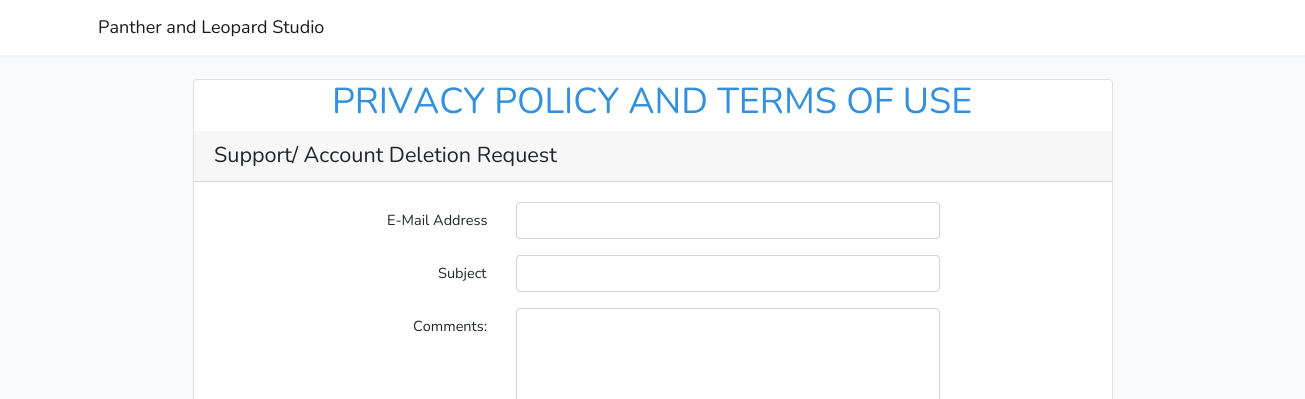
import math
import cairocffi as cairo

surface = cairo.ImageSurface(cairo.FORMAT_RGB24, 1305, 399)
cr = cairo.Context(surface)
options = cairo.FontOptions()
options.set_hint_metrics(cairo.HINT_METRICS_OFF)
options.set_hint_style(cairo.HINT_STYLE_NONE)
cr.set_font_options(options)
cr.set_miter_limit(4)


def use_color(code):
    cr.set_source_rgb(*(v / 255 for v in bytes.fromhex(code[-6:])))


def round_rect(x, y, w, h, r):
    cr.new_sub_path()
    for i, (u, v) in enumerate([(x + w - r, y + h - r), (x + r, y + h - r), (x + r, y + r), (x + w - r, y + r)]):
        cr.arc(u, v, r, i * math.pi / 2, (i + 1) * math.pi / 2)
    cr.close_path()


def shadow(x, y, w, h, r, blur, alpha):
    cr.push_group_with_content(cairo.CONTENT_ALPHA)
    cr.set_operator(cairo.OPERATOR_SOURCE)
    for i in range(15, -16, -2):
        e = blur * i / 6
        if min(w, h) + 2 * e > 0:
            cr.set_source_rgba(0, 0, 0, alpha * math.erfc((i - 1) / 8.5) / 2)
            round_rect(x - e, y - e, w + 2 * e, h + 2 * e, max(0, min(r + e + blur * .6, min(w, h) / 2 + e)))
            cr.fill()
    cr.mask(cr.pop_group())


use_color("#f8fafc")
cr.paint()
use_color("#000000")
shadow(0, 2, 1305, 55, 0, 2, 0.04)
use_color("#ffffff")
cr.rectangle(0, 0, 1305, 55)
cr.fill()
cr.select_font_face("Nunito ExtraLight")
cr.set_font_size(18)
use_color("#1a1a1a")
cr.move_to(98, 33)
cr.show_text("Panther and Leopard Studio")
use_color("#ffffff")
round_rect(193.5, 79.5, 919, 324, 3.5)
cr.fill_preserve()
use_color("#dfdfdf")
cr.set_line_width(1)
cr.stroke()
cr.set_font_size(36)
use_color("#3490dc")
cr.move_to(332, 113)
cr.show_text("PRIVACY POLICY AND TERMS OF USE")
use_color("#f7f7f7")
cr.rectangle(194, 131, 918, 50)
cr.fill()
use_color("#d8d8d8")
cr.rectangle(194, 181, 918, 1)
cr.fill()
cr.set_font_size(21.6)
use_color("#212529")
cr.move_to(214, 162)
cr.show_text("Support/ Account Deletion Request")
cr.set_font_size(14.5)
cr.move_to(387, 225)
cr.show_text("E-Mail Address")
round_rect(516.5, 202.5, 423, 36, 3.5)
use_color("#ced4da")
cr.stroke()
use_color("#212529")
cr.move_to(438, 278)
cr.show_text("Subject")
round_rect(516.5, 255.5, 423, 36, 3.5)
use_color("#ced4da")
cr.stroke()
use_color("#212529")
cr.move_to(413, 331)
cr.show_text("Comments:")
round_rect(516.5, 308.5, 423, 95, 3.5)
use_color("#ced4da")
cr.stroke()
surface.write_to_png("result.png")
